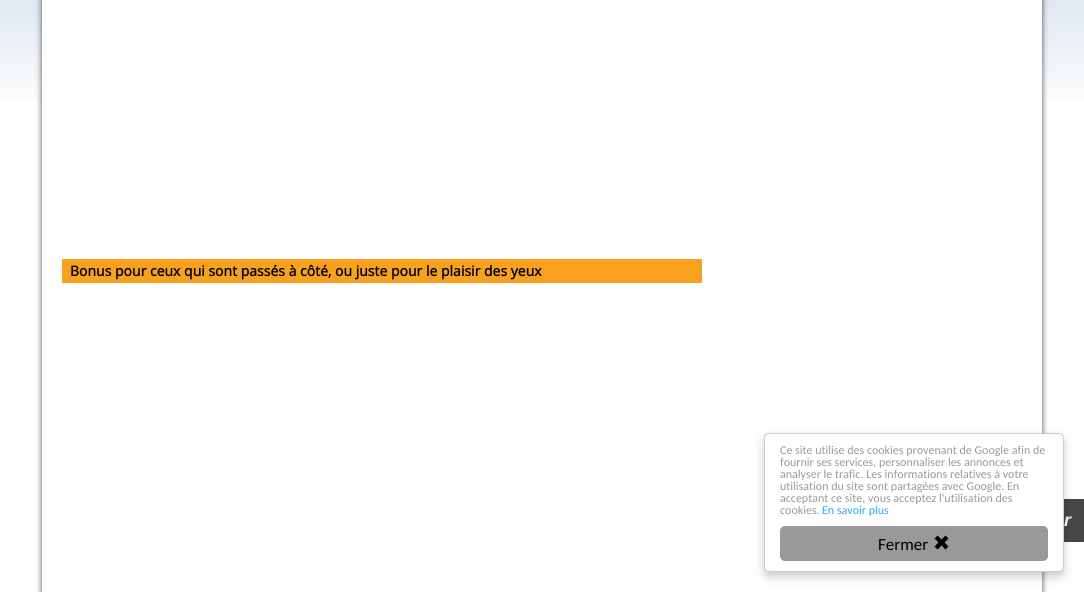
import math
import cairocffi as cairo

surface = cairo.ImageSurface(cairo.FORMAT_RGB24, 1084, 592)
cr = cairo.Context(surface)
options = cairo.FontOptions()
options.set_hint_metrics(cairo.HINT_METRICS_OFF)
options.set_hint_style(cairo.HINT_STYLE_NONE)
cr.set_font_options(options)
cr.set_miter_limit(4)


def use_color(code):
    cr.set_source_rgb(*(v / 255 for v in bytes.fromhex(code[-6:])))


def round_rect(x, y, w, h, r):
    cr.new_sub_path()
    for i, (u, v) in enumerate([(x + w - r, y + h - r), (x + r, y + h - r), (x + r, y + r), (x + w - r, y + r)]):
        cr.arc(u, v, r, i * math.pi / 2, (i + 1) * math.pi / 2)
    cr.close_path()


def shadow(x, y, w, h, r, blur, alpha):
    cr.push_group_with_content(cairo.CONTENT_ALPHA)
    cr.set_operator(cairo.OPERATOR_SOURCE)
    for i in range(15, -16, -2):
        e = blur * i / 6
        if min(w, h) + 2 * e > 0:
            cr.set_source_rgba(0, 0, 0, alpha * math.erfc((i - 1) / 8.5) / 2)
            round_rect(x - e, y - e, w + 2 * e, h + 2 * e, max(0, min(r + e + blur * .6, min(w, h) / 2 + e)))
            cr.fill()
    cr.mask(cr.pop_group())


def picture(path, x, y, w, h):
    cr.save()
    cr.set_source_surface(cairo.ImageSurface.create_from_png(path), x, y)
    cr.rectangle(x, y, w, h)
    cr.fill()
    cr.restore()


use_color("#ffffff")
cr.paint()
gradient = cairo.LinearGradient(542, -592, 542, 108)
gradient.add_color_stop_rgba(0, 0.192, 0.404, 0.647, 1)
gradient.add_color_stop_rgba(1, 1, 1, 1, 1)
cr.set_source(gradient)
cr.rectangle(0, 0, 1084, 100)
cr.fill()
use_color("#464646")
shadow(42, -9, 1000, 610, 0, 3, 1)
use_color("#ffffff")
cr.rectangle(42, 0, 1000, 592)
cr.fill()
use_color("#f8a11e")
cr.rectangle(62, 259, 640, 24)
cr.fill()
cr.select_font_face("Open Sans", cairo.FONT_SLANT_NORMAL, cairo.FONT_WEIGHT_BOLD)
cr.set_font_size(14)
use_color("#000000")
cr.move_to(70, 276)
cr.show_text("Bonus pour ceux qui sont passés à côté, ou juste pour le plaisir des yeux")
cr.set_source_rgba(0.2, 0.2, 0.2, 0.9)
cr.rectangle(1064, 499, 20, 43)
cr.fill()
cr.rectangle(974.5, 499.5, 109, 42)
cr.set_source_rgba(0.267, 0.267, 0.267, 0.9)
cr.set_line_width(1)
cr.stroke()
use_color("#000000")
shadow(764, 438, 300, 139, 5, 5, 0.2)
use_color("#ffffff")
round_rect(764.5, 433.5, 299, 138, 4.5)
cr.fill_preserve()
use_color("#cccccc")
cr.stroke()
cr.select_font_face("Carlito")
cr.set_font_size(12)
use_color("#999999")
cr.move_to(780, 454)
cr.show_text("Ce site utilise des cookies provenant de Google afin de")
cr.move_to(780, 466)
cr.show_text("fournir ses services, personnaliser les annonces et")
cr.move_to(780, 478)
cr.show_text("analyser le trafic. Les informations relatives à votre")
cr.move_to(780, 490)
cr.show_text("utilisation du site sont partagées avec Google. En")
cr.move_to(780, 502)
cr.show_text("acceptant ce site, vous acceptez l'utilisation des")
cr.move_to(780, 514)
cr.show_text("cookies.")
use_color("#31a8f0")
cr.move_to(822, 514)
cr.show_text("En savoir plus")
use_color("#999999")
round_rect(780, 526, 268, 35, 5)
cr.fill()
cr.set_font_size(17)
use_color("#000000")
cr.move_to(878, 550)
cr.show_text("Fermer")
picture("img1.png", 934, 535, 15, 15)
cr.select_font_face("Liberation Sans", cairo.FONT_SLANT_ITALIC, cairo.FONT_WEIGHT_BOLD)
cr.set_font_size(18)
use_color("#ededed")
cr.move_to(1064, 526)
cr.show_text("r")
surface.write_to_png("result.png")
